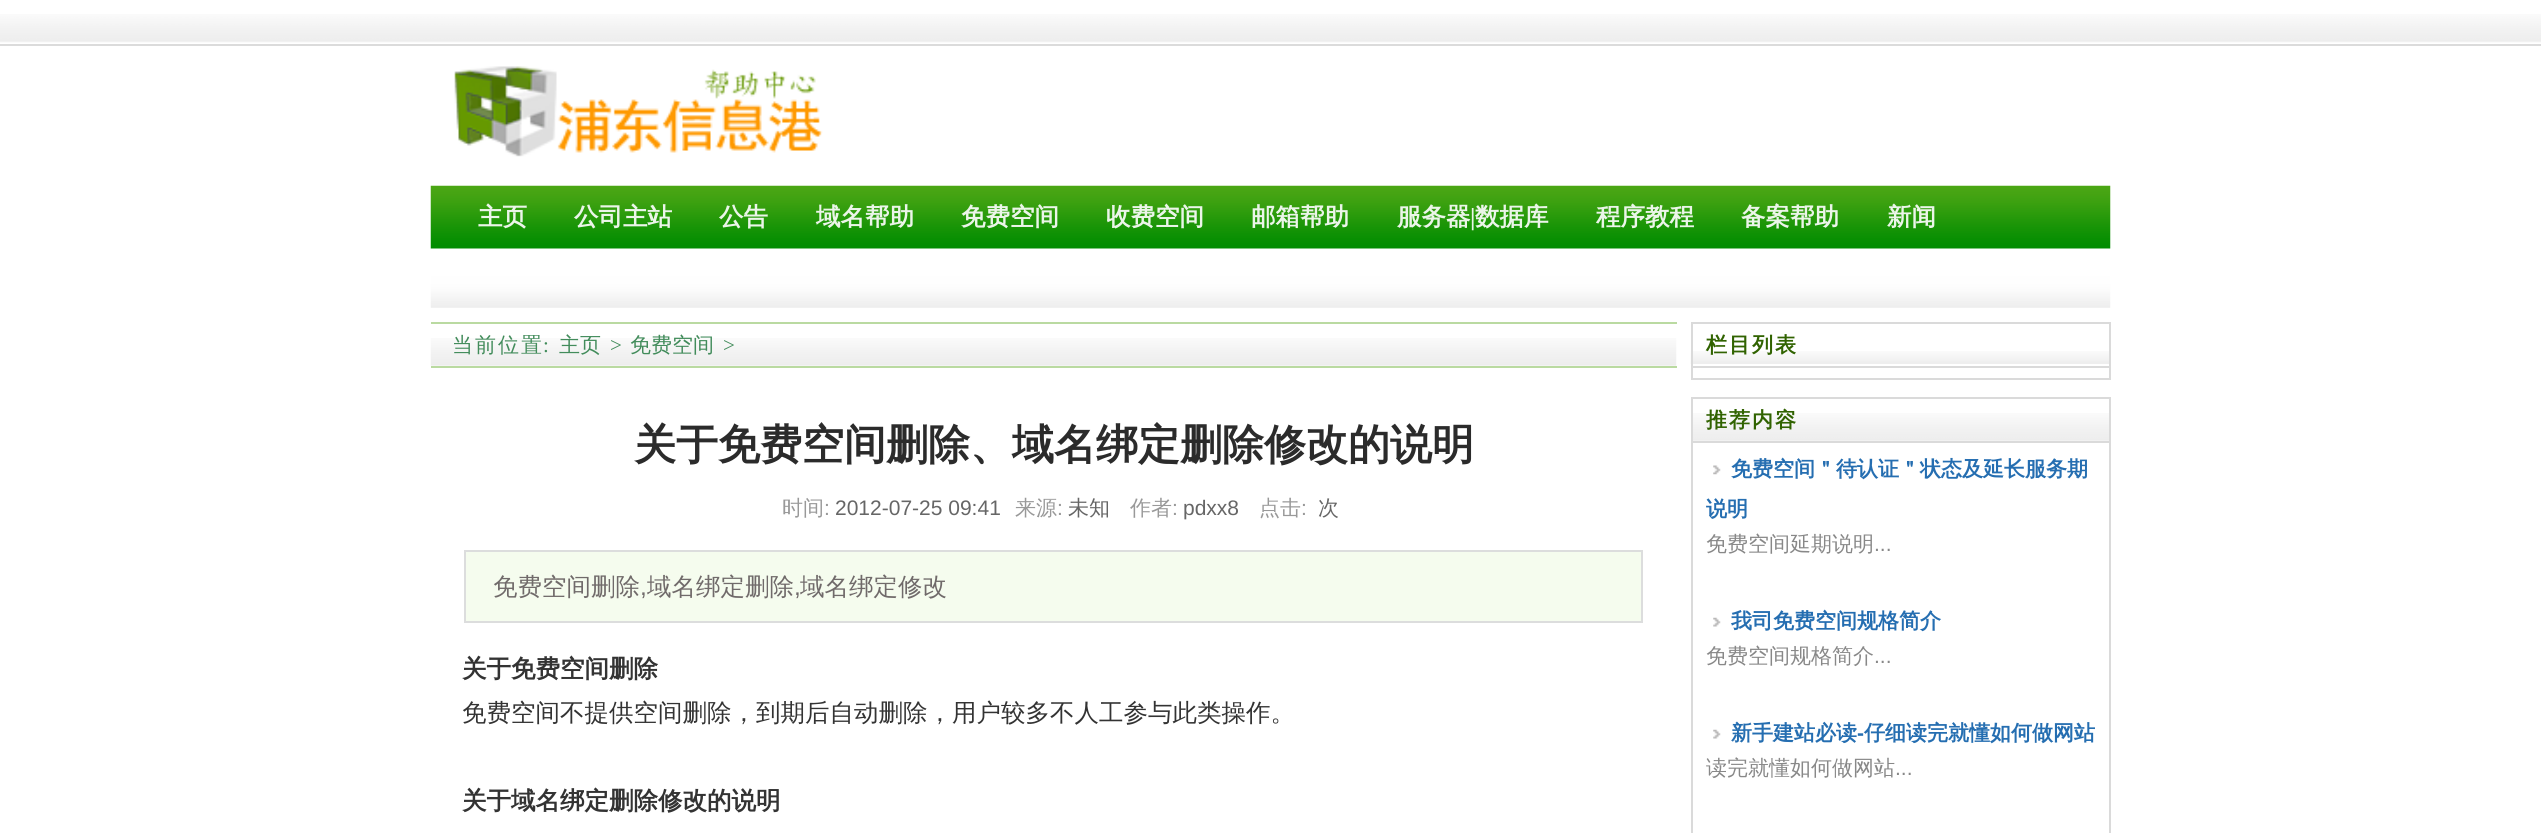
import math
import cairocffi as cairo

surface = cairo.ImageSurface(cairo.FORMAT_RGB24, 2541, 833)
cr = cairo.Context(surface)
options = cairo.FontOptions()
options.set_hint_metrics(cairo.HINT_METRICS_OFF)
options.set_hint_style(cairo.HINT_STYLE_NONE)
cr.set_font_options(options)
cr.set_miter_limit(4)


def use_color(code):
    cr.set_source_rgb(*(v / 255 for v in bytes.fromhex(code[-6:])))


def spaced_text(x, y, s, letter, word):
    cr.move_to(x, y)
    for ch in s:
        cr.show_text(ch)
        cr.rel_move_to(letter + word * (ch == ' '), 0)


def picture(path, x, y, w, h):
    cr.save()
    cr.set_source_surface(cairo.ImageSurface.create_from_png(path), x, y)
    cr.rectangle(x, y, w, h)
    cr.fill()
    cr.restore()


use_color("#ffffff")
cr.paint()
picture("img1.png", 0, 14, 2541, 29)
use_color("#dbdbdb")
cr.rectangle(0, 44, 2541, 2)
cr.fill()
picture("img2.png", 454, 66, 369, 91)
picture("img3.png", 430, 185, 1681, 123)
cr.select_font_face("WenQuanYi Zen Hei", cairo.FONT_SLANT_NORMAL, cairo.FONT_WEIGHT_BOLD)
cr.set_font_size(24.5)
use_color("#ebf5e9")
cr.move_to(478, 225)
cr.show_text("主页")
cr.move_to(574, 225)
cr.show_text("公司主站")
cr.move_to(719, 225)
cr.show_text("公告")
cr.move_to(816, 225)
cr.show_text("域名帮助")
cr.move_to(961, 225)
cr.show_text("免费空间")
cr.move_to(1106, 225)
cr.show_text("收费空间")
cr.move_to(1251, 225)
cr.show_text("邮箱帮助")
cr.move_to(1397, 225)
cr.show_text("服务器")
cr.select_font_face("Liberation Serif", cairo.FONT_SLANT_NORMAL, cairo.FONT_WEIGHT_BOLD)
cr.move_to(1470, 225)
cr.show_text("|")
cr.select_font_face("WenQuanYi Zen Hei", cairo.FONT_SLANT_NORMAL, cairo.FONT_WEIGHT_BOLD)
cr.move_to(1475, 225)
cr.show_text("数据库")
cr.move_to(1596, 225)
cr.show_text("程序教程")
cr.move_to(1741, 225)
cr.show_text("备案帮助")
cr.move_to(1887, 225)
cr.show_text("新闻")
picture("img4.png", 430, 338, 1247, 28)
use_color("#badaa1")
cr.rectangle(431, 322, 1246, 2)
cr.fill()
cr.rectangle(431, 366, 1246, 2)
cr.fill()
cr.select_font_face("WenQuanYi Zen Hei Medium")
cr.set_font_size(21)
use_color("#428c5b")
spaced_text(452, 352, "当前位置", 2, 0)
cr.select_font_face("Liberation Serif")
spaced_text(543, 352, ":", 2, 0)
cr.select_font_face("WenQuanYi Zen Hei Medium")
cr.move_to(559, 352)
cr.show_text("主页")
cr.select_font_face("Liberation Serif")
cr.move_to(610, 352)
cr.show_text(">")
cr.select_font_face("WenQuanYi Zen Hei Medium")
cr.move_to(630, 352)
cr.show_text("免费空间")
cr.select_font_face("Liberation Serif")
cr.move_to(723, 352)
cr.show_text(">")
cr.select_font_face("WenQuanYi Zen Hei", cairo.FONT_SLANT_NORMAL, cairo.FONT_WEIGHT_BOLD)
cr.set_font_size(42)
use_color("#2b2b2b")
cr.move_to(634, 459)
cr.show_text("关于免费空间删除、域名绑定删除修改的说明")
cr.select_font_face("WenQuanYi Zen Hei Medium")
cr.set_font_size(21)
use_color("#999999")
cr.move_to(782, 515)
cr.show_text("时间")
cr.select_font_face("Liberation Sans")
cr.move_to(824, 515)
cr.show_text(":")
use_color("#666666")
cr.move_to(835, 515)
cr.show_text("2012-07-25 09:41")
cr.select_font_face("WenQuanYi Zen Hei Medium")
use_color("#999999")
cr.move_to(1015, 515)
cr.show_text("来源")
cr.select_font_face("Liberation Sans")
cr.move_to(1057, 515)
cr.show_text(":")
cr.select_font_face("WenQuanYi Zen Hei Medium")
use_color("#666666")
cr.move_to(1068, 515)
cr.show_text("未知")
use_color("#999999")
cr.move_to(1130, 515)
cr.show_text("作者")
cr.select_font_face("Liberation Sans")
cr.move_to(1172, 515)
cr.show_text(":")
use_color("#666666")
cr.move_to(1183, 515)
cr.show_text("pdxx8")
cr.select_font_face("WenQuanYi Zen Hei Medium")
use_color("#999999")
cr.move_to(1259, 515)
cr.show_text("点击")
cr.select_font_face("Liberation Sans")
cr.move_to(1301, 515)
cr.show_text(":")
cr.select_font_face("WenQuanYi Zen Hei Medium")
use_color("#666666")
cr.move_to(1318, 515)
cr.show_text("次")
use_color("#f5fcee")
cr.rectangle(465, 551, 1177, 71)
cr.fill_preserve()
use_color("#dcdddd")
cr.stroke()
cr.set_font_size(24.5)
use_color("#706a6a")
cr.move_to(493, 595)
cr.show_text("免费空间删除")
cr.select_font_face("Liberation Sans")
cr.move_to(640, 595)
cr.show_text(",")
cr.select_font_face("WenQuanYi Zen Hei Medium")
cr.move_to(647, 595)
cr.show_text("域名绑定删除")
cr.select_font_face("Liberation Sans")
cr.move_to(794, 595)
cr.show_text(",")
cr.select_font_face("WenQuanYi Zen Hei Medium")
cr.move_to(800, 595)
cr.show_text("域名绑定修改")
cr.select_font_face("WenQuanYi Zen Hei", cairo.FONT_SLANT_NORMAL, cairo.FONT_WEIGHT_BOLD)
use_color("#333333")
cr.move_to(462, 677)
cr.show_text("关于免费空间删除")
cr.select_font_face("WenQuanYi Zen Hei Medium")
cr.move_to(462, 721)
cr.show_text("免费空间不提供空间删除，到期后自动删除，用户较多不人工参与此类操作。")
cr.select_font_face("WenQuanYi Zen Hei", cairo.FONT_SLANT_NORMAL, cairo.FONT_WEIGHT_BOLD)
cr.move_to(462, 809)
cr.show_text("关于域名绑定删除修改的说明")
picture("img5.png", 1690, 351, 419, 13)
use_color("#dadada")
cr.rectangle(1691, 378, 420, 2)
cr.fill()
cr.rectangle(1692, 323, 418, 44)
cr.stroke()
cr.set_font_size(21)
use_color("#316301")
spaced_text(1706, 352, "栏目列表", 2, 0)
use_color("#dadada")
cr.rectangle(2109, 368, 2, 10)
cr.fill()
cr.rectangle(1691, 368, 2, 10)
cr.fill()
picture("img6.png", 1693, 413, 416, 28)
cr.rectangle(1692, 398, 418, 44)
cr.stroke()
use_color("#316301")
spaced_text(1706, 427, "推荐内容", 2, 0)
use_color("#dadada")
cr.rectangle(2109, 443, 2, 390)
cr.fill()
cr.rectangle(1691, 443, 2, 390)
cr.fill()
picture("img7.png", 1713, 465, 8, 10)
use_color("#256eb1")
cr.move_to(1731, 476)
cr.show_text("免费空间＂待认证＂状态及延长服务期")
cr.move_to(1706, 516)
cr.show_text("说明")
cr.select_font_face("WenQuanYi Zen Hei Medium")
use_color("#888888")
cr.move_to(1706, 551)
cr.show_text("免费空间延期说明")
cr.select_font_face("Liberation Sans")
cr.move_to(1874, 551)
cr.show_text("...")
picture("img8.png", 1713, 617, 8, 10)
cr.select_font_face("WenQuanYi Zen Hei", cairo.FONT_SLANT_NORMAL, cairo.FONT_WEIGHT_BOLD)
use_color("#256eb1")
cr.move_to(1731, 628)
cr.show_text("我司免费空间规格简介")
cr.select_font_face("WenQuanYi Zen Hei Medium")
use_color("#888888")
cr.move_to(1706, 663)
cr.show_text("免费空间规格简介")
cr.select_font_face("Liberation Sans")
cr.move_to(1874, 663)
cr.show_text("...")
picture("img8.png", 1713, 729, 8, 10)
cr.select_font_face("WenQuanYi Zen Hei", cairo.FONT_SLANT_NORMAL, cairo.FONT_WEIGHT_BOLD)
use_color("#256eb1")
cr.move_to(1731, 740)
cr.show_text("新手建站必读")
cr.select_font_face("Liberation Sans", cairo.FONT_SLANT_NORMAL, cairo.FONT_WEIGHT_BOLD)
cr.move_to(1857, 740)
cr.show_text("-")
cr.select_font_face("WenQuanYi Zen Hei", cairo.FONT_SLANT_NORMAL, cairo.FONT_WEIGHT_BOLD)
cr.move_to(1864, 740)
cr.show_text("仔细读完就懂如何做网站")
cr.select_font_face("WenQuanYi Zen Hei Medium")
use_color("#888888")
cr.move_to(1706, 775)
cr.show_text("读完就懂如何做网站")
cr.select_font_face("Liberation Sans")
cr.move_to(1895, 775)
cr.show_text("...")
surface.write_to_png("result.png")
